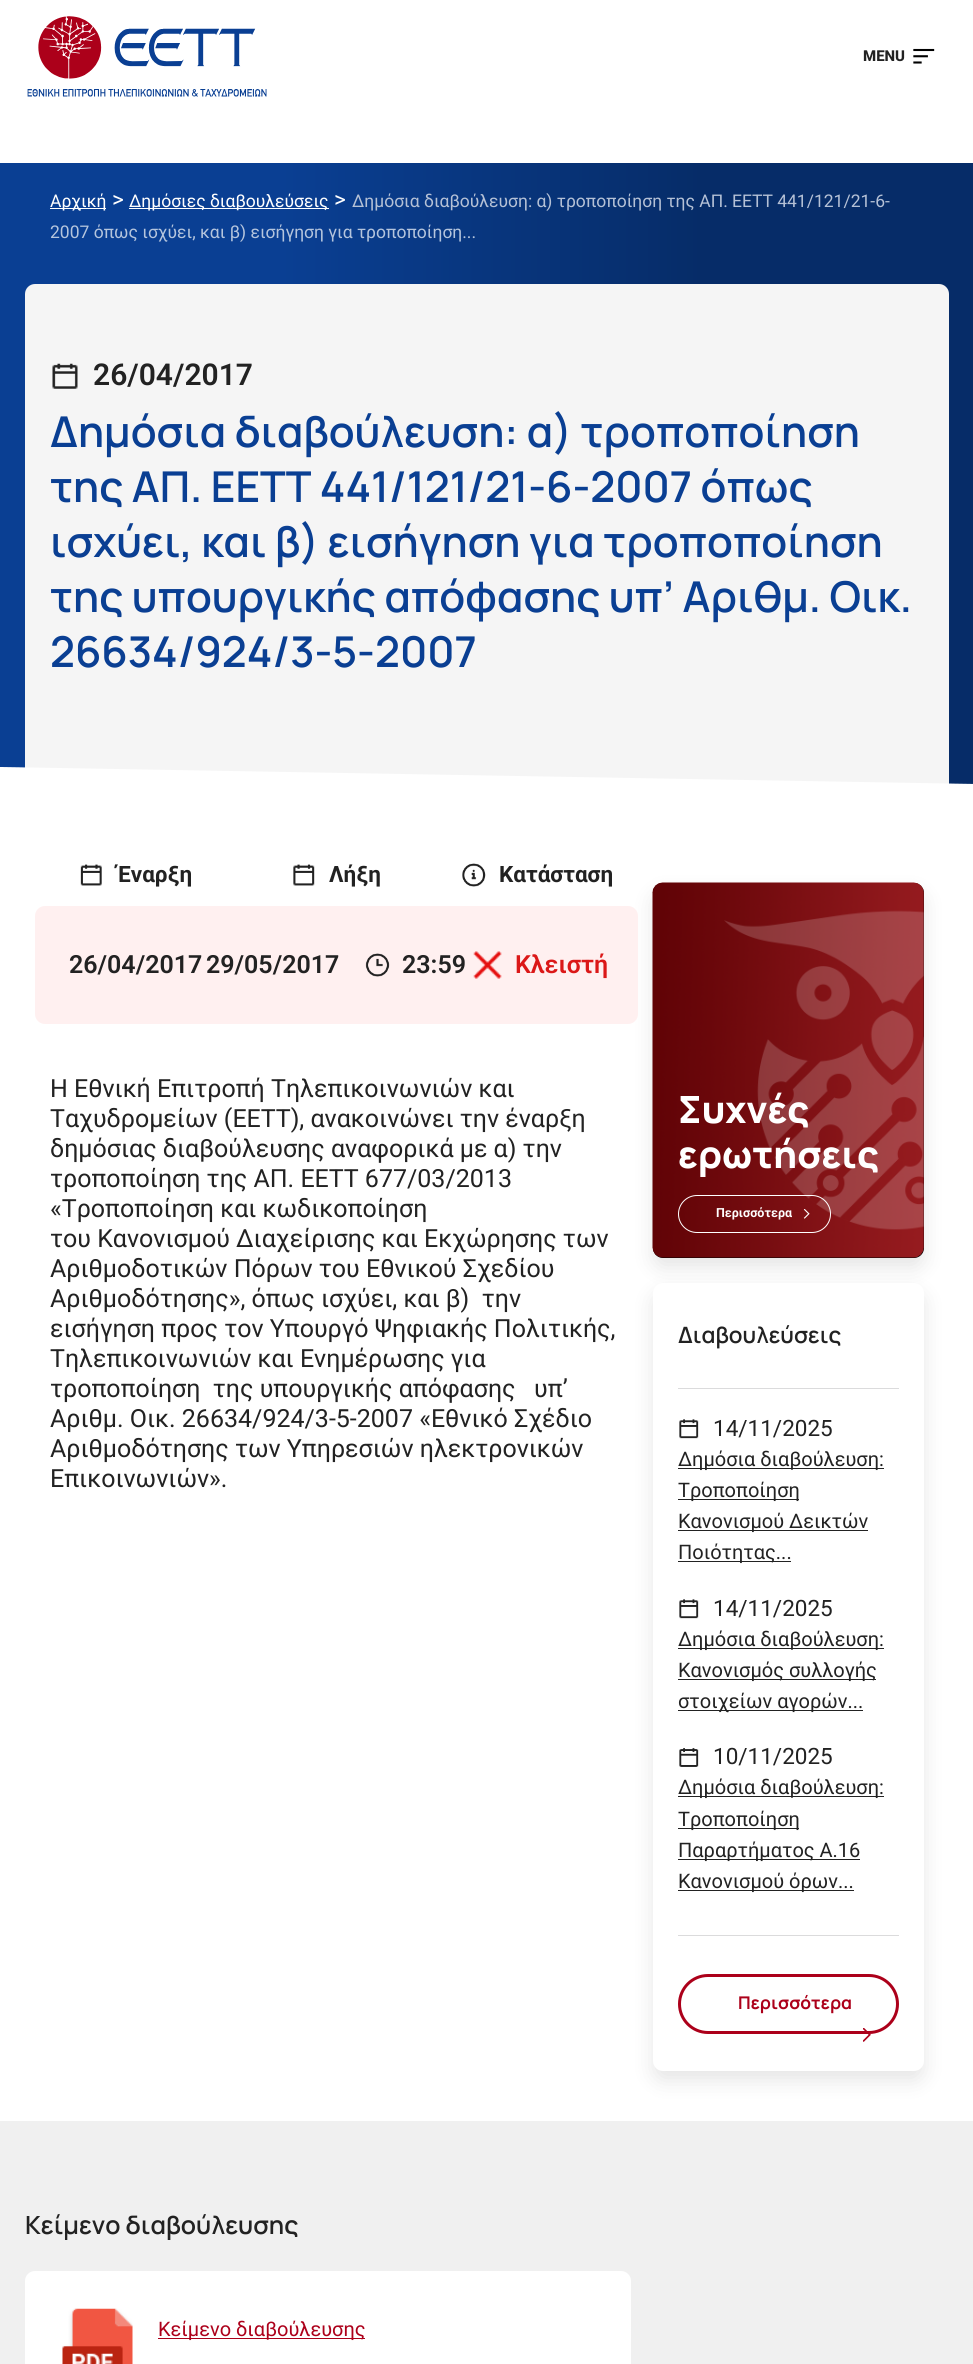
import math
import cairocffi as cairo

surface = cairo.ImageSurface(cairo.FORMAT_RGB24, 973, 2364)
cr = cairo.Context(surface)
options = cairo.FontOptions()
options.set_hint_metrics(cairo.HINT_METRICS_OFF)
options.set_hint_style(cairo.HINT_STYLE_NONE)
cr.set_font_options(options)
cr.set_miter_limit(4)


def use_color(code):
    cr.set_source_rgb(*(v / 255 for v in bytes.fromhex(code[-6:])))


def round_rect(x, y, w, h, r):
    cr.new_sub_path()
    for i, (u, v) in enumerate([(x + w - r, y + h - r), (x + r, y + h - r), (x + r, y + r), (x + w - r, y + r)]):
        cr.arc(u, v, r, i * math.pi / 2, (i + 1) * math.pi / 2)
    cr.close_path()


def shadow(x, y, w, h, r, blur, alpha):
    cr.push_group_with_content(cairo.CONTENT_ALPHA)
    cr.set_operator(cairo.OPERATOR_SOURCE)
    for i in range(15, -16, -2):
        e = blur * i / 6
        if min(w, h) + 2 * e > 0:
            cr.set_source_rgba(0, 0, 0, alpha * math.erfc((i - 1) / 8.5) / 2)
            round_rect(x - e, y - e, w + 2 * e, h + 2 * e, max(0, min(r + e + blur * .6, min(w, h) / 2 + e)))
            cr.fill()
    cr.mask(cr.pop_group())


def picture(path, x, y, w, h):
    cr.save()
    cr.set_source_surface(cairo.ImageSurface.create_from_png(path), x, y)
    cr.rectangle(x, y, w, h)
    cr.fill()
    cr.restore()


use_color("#ffffff")
cr.paint()
picture("img1.png", 27, 16, 240, 81)
cr.select_font_face("Roboto ExtraBold")
cr.set_font_size(15)
use_color("#222222")
cr.move_to(863, 61)
cr.show_text("MENU")
picture("img2.png", 913, 48, 22, 16)
gradient = cairo.LinearGradient(0, 474, 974, 474)
gradient.add_color_stop_rgba(0.29, 0.039, 0.247, 0.576, 1)
gradient.add_color_stop_rgba(0.72, 0.024, 0.173, 0.408, 1)
cr.set_source(gradient)
cr.rectangle(0, 163, 973, 621)
cr.fill()
use_color("#ffffff")
cr.rectangle(50, 208, 56, 1)
cr.fill()
cr.select_font_face("Roboto")
cr.set_font_size(17.5)
cr.move_to(50, 207)
cr.show_text("Αρχική")
cr.set_font_size(22.5)
cr.move_to(112, 207)
cr.show_text(">")
cr.rectangle(129, 208, 200, 1)
cr.fill()
cr.set_font_size(17.5)
cr.move_to(129, 207)
cr.show_text("Δημόσιες διαβουλεύσεις")
cr.set_font_size(22.5)
cr.move_to(334, 207)
cr.show_text(">")
cr.set_font_size(17.5)
use_color("#b5c1d6")
cr.move_to(352, 207)
cr.show_text("Δημόσια διαβούλευση: α) τροποποίηση της ΑΠ. ΕΕΤΤ 441/121/21-6-")
use_color("#b5c5dd")
cr.move_to(50, 238)
cr.show_text("2007 όπως ισχύει, και β) εισήγηση για τροποποίηση...")
use_color("#f5f5f5")
cr.new_path()
cr.move_to(35, 284)
cr.line_to(939, 284)
cr.curve_to(944.5, 284, 949, 288.5, 949, 294)
cr.line_to(949, 785)
cr.line_to(25, 785)
cr.line_to(25, 294)
cr.curve_to(25, 288.5, 29.5, 284, 35, 284)
cr.close_path()
cr.fill()
picture("img3.png", 52, 363, 26, 26)
cr.select_font_face("Roboto SemiBold")
cr.set_font_size(30)
use_color("#222222")
cr.move_to(93, 385)
cr.show_text("26/04/2017")
cr.select_font_face("Manrope SemiBold")
cr.set_font_size(42.5)
use_color("#0a3f93")
cr.move_to(50, 447)
cr.show_text("Δημόσια διαβούλευση: α) τροποποίηση")
cr.move_to(50, 502)
cr.show_text("της ΑΠ. ΕΕΤΤ 441/121/21-6-2007 όπως")
cr.move_to(50, 557)
cr.show_text("ισχύει, και β) εισήγηση για τροποποίηση")
cr.move_to(50, 612)
cr.show_text("της υπουργικής απόφασης υπ’ Αριθμ. Οικ.")
cr.move_to(50, 667)
cr.show_text("26634/924/3-5-2007")
use_color("#ffffff")
cr.new_path()
cr.move_to(0, 767)
cr.line_to(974, 784)
cr.line_to(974, 859)
cr.line_to(0, 842)
cr.close_path()
cr.fill()
picture("img4.png", 80, 864, 22, 22)
cr.select_font_face("Roboto", cairo.FONT_SLANT_NORMAL, cairo.FONT_WEIGHT_BOLD)
cr.set_font_size(22.5)
use_color("#222222")
cr.move_to(117, 882)
cr.show_text("Έναρξη")
picture("img5.png", 293, 864, 22, 22)
cr.move_to(329, 882)
cr.show_text("Λήξη")
picture("img6.png", 462, 863, 24, 24)
cr.move_to(499, 882)
cr.show_text("Κατάσταση")
use_color("#000000")
shadow(653, 893, 271, 375, 10, 10, 0.1)
use_color("#fff0f0")
round_rect(35, 906, 603, 118, 10)
cr.fill()
cr.select_font_face("Roboto SemiBold")
cr.set_font_size(25)
use_color("#222222")
cr.move_to(69, 973)
cr.show_text("26/04/2017")
cr.move_to(206, 973)
cr.show_text("29/05/2017")
picture("img7.png", 365, 953, 25, 24)
cr.move_to(402, 973)
cr.show_text("23:59")
picture("img8.png", 473, 951, 29, 28)
use_color("#db1818")
cr.move_to(515, 973)
cr.show_text("Κλειστή")
cr.select_font_face("Roboto")
use_color("#222222")
cr.move_to(50, 1097)
cr.show_text("Η Εθνική Επιτροπή Τηλεπικοινωνιών και")
cr.move_to(50, 1127)
cr.show_text("Ταχυδρομείων (ΕΕΤΤ), ανακοινώνει την έναρξη")
cr.move_to(50, 1157)
cr.show_text("δημόσιας διαβούλευσης αναφορικά με α) την")
cr.move_to(50, 1187)
cr.show_text("τροποποίηση της ΑΠ. ΕΕΤΤ 677/03/2013")
cr.move_to(50, 1217)
cr.show_text("«Τροποποίηση και κωδικοποίηση")
cr.move_to(50, 1247)
cr.show_text("του Κανονισμού Διαχείρισης και Εκχώρησης των")
cr.move_to(50, 1277)
cr.show_text("Αριθμοδοτικών Πόρων του Εθνικού Σχεδίου")
cr.move_to(50, 1307)
cr.show_text("Αριθμοδότησης», όπως ισχύει, και β)  την")
cr.move_to(50, 1337)
cr.show_text("εισήγηση προς τον Υπουργό Ψηφιακής Πολιτικής,")
cr.move_to(50, 1367)
cr.show_text("Τηλεπικοινωνιών και Ενημέρωσης για")
cr.move_to(50, 1397)
cr.show_text("τροποποίηση  της υπουργικής απόφασης   υπ’")
cr.move_to(50, 1427)
cr.show_text("Αριθμ. Οικ. 26634/924/3-5-2007 «Εθνικό Σχέδιο")
cr.move_to(50, 1457)
cr.show_text("Αριθμοδότησης των Υπηρεσιών ηλεκτρονικών")
cr.move_to(50, 1487)
cr.show_text("Επικοινωνιών».")
use_color("#000000")
round_rect(653, 883, 271, 375, 10)
cr.fill()
picture("img9.png", 652, 882, 272, 376)
cr.select_font_face("Manrope ExtraBold")
cr.set_font_size(37.5)
use_color("#ffffff")
cr.move_to(678, 1123)
cr.show_text("Συχνές")
cr.move_to(678, 1168)
cr.show_text("ερωτήσεις")
round_rect(678.5, 1195.5, 152, 37, 18.5)
cr.set_line_width(1)
cr.stroke()
cr.select_font_face("Roboto", cairo.FONT_SLANT_NORMAL, cairo.FONT_WEIGHT_BOLD)
cr.set_font_size(12.5)
cr.move_to(716, 1217)
cr.show_text("Περισσότερα")
picture("img10.png", 803, 1209, 7, 10)
use_color("#000000")
shadow(653, 1293, 271, 788, 10, 10, 0.1)
use_color("#ffffff")
round_rect(653, 1283, 271, 788, 10)
cr.fill()
use_color("#dbdbdc")
cr.rectangle(678, 1388, 221, 1)
cr.fill()
cr.select_font_face("Manrope SemiBold")
cr.set_font_size(22.5)
use_color("#222222")
cr.move_to(678, 1343)
cr.show_text("Διαβουλεύσεις")
picture("img11.png", 679, 1419, 20, 20)
cr.select_font_face("Roboto")
cr.move_to(713, 1436)
cr.show_text("14/11/2025")
cr.rectangle(678, 1468, 206, 1)
cr.fill()
cr.set_font_size(20)
cr.move_to(678, 1466)
cr.show_text("Δημόσια διαβούλευση:")
cr.rectangle(678, 1499, 121, 1)
cr.fill()
cr.move_to(678, 1497)
cr.show_text("Τροποποίηση")
cr.rectangle(678, 1530, 190, 1)
cr.fill()
cr.move_to(678, 1528)
cr.show_text("Κανονισμού Δεικτών")
cr.rectangle(678, 1561, 113, 1)
cr.fill()
cr.move_to(678, 1559)
cr.show_text("Ποιότητας...")
picture("img11.png", 679, 1599, 20, 20)
cr.set_font_size(22.5)
cr.move_to(713, 1616)
cr.show_text("14/11/2025")
cr.rectangle(678, 1648, 206, 1)
cr.fill()
cr.set_font_size(20)
cr.move_to(678, 1646)
cr.show_text("Δημόσια διαβούλευση:")
cr.rectangle(678, 1679, 198, 1)
cr.fill()
cr.move_to(678, 1677)
cr.show_text("Κανονισμός συλλογής")
cr.rectangle(678, 1710, 185, 1)
cr.fill()
cr.move_to(678, 1708)
cr.show_text("στοιχείων αγορών...")
picture("img12.png", 679, 1748, 20, 19)
cr.set_font_size(22.5)
cr.move_to(713, 1764)
cr.show_text("10/11/2025")
cr.rectangle(678, 1796, 206, 1)
cr.fill()
cr.set_font_size(20)
cr.move_to(678, 1794)
cr.show_text("Δημόσια διαβούλευση:")
cr.rectangle(678, 1828, 121, 1)
cr.fill()
cr.move_to(678, 1826)
cr.show_text("Τροποποίηση")
cr.rectangle(678, 1859, 182, 1)
cr.fill()
cr.move_to(678, 1857)
cr.show_text("Παραρτήματος Α.16")
cr.rectangle(678, 1890, 176, 1)
cr.fill()
cr.move_to(678, 1888)
cr.show_text("Κανονισμού όρων...")
use_color("#dbdbdc")
cr.rectangle(678, 1935, 221, 1)
cr.fill()
round_rect(679.5, 1975.5, 218, 57, 28.5)
use_color("#ac001a")
cr.set_line_width(3)
cr.stroke()
cr.select_font_face("Manrope", cairo.FONT_SLANT_NORMAL, cairo.FONT_WEIGHT_BOLD)
cr.set_font_size(17.5)
cr.move_to(738, 2009)
cr.show_text("Περισσότερα")
picture("img13.png", 863, 2028, 8, 14)
use_color("#f0f0f0")
cr.rectangle(0, 2121, 973, 243)
cr.fill()
cr.select_font_face("Manrope SemiBold")
cr.set_font_size(25)
use_color("#222222")
cr.move_to(25, 2234)
cr.show_text("Κείμενο διαβούλευσης")
use_color("#ffffff")
round_rect(25, 2271, 606, 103, 10)
cr.fill()
picture("img14.png", 62, 2308, 71, 56)
use_color("#ac001a")
cr.rectangle(158, 2338, 207, 1)
cr.fill()
cr.select_font_face("Roboto")
cr.set_font_size(20)
cr.move_to(158, 2336)
cr.show_text("Κείμενο διαβούλευσης")
surface.write_to_png("result.png")
